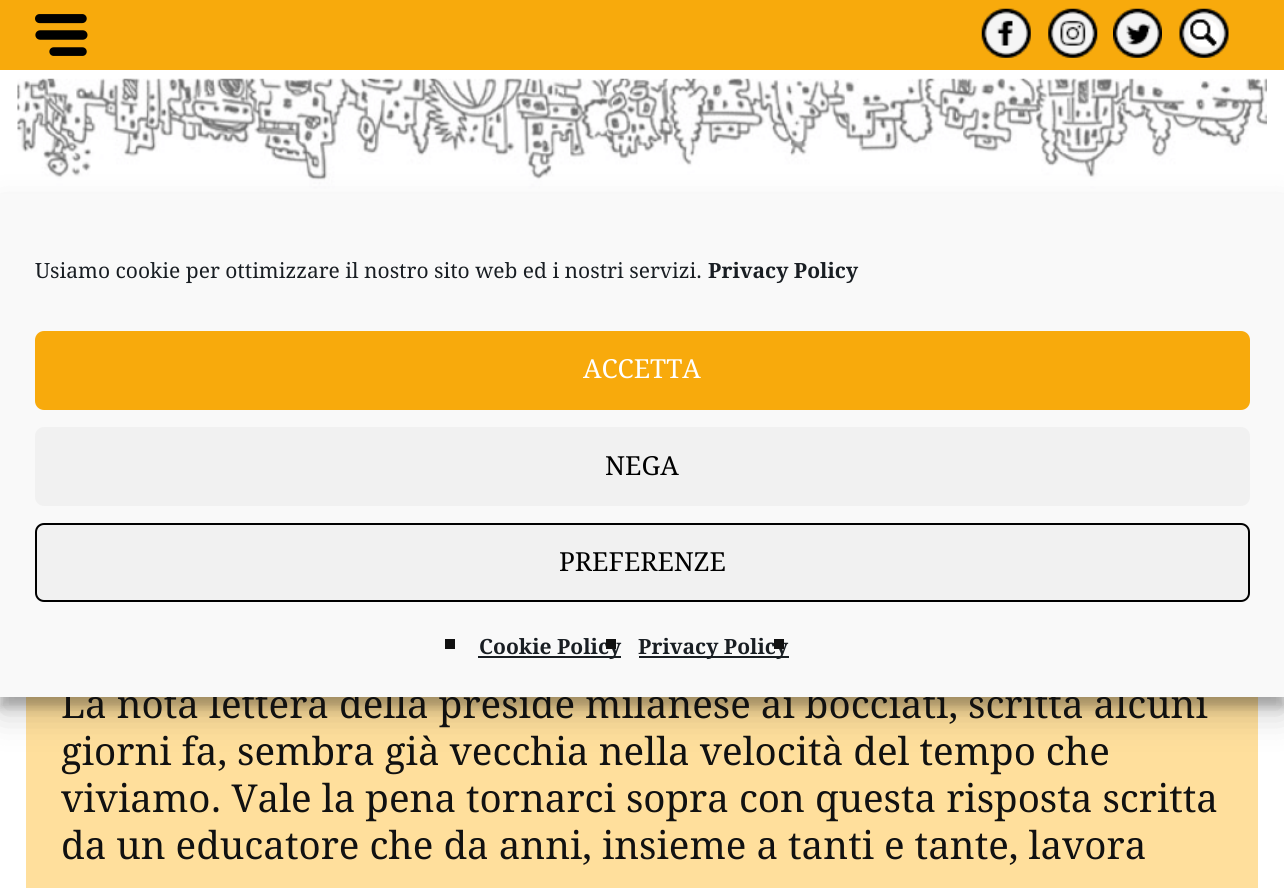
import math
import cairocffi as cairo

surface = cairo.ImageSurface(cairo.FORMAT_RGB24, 1284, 888)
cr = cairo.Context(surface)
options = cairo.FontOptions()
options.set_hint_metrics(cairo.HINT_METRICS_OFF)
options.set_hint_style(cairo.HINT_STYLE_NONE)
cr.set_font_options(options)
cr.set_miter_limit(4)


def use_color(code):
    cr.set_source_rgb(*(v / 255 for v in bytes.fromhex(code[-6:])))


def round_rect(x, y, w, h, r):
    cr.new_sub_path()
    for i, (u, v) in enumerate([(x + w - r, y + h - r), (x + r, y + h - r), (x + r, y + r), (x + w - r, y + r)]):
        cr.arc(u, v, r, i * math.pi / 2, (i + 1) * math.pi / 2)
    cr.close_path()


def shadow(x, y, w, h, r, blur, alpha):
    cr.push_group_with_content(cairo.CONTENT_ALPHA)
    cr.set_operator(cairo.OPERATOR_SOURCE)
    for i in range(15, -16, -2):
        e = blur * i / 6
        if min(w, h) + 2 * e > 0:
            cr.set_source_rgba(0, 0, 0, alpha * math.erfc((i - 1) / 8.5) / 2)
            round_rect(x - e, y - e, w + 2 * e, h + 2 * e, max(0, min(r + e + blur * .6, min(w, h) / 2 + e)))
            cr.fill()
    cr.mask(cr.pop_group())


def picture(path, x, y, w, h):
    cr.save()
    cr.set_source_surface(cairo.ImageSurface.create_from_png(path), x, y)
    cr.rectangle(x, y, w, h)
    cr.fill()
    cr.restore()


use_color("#ffffff")
cr.paint()
picture("img6.png", 17, 78, 1250, 116)
use_color("#ffdf9c")
cr.rectangle(26, 697, 1232, 191)
cr.fill()
use_color("#000000")
shadow(0, 205, 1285, 502, 0, 5, 0.23)
shadow(0, 212, 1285, 502, 0, 17.5, 0.19)
cr.select_font_face("Droid Serif")
cr.set_font_size(38.5)
use_color("#111111")
cr.move_to(61, 718)
cr.show_text("La nota lettera della preside milanese ai bocciati, scritta alcuni")
use_color("#f9f9f9")
cr.rectangle(0, 194, 1284, 503)
cr.fill()
cr.set_font_size(21)
use_color("#191e23")
cr.move_to(35, 278)
cr.show_text("Usiamo cookie per ottimizzare il nostro sito web ed i nostri servizi.")
cr.select_font_face("Droid Serif", cairo.FONT_SLANT_NORMAL, cairo.FONT_WEIGHT_BOLD)
cr.move_to(708, 278)
cr.show_text("Privacy Policy")
use_color("#f8aa0c")
round_rect(36, 332, 1213, 77, 8)
cr.fill_preserve()
cr.stroke()
cr.select_font_face("Droid Serif")
cr.set_font_size(26.25)
use_color("#ffffff")
cr.move_to(583, 378)
cr.show_text("ACCETTA")
use_color("#f1f1f1")
round_rect(35, 427, 1215, 79, 9)
cr.fill()
use_color("#000000")
cr.move_to(605, 475)
cr.show_text("NEGA")
use_color("#f1f1f1")
round_rect(36, 524, 1213, 77, 8)
cr.fill_preserve()
use_color("#000000")
cr.stroke()
cr.move_to(559, 571)
cr.show_text("PREFERENZE")
use_color("#111111")
cr.rectangle(445, 639, 10, 10)
cr.fill()
use_color("#191e23")
cr.rectangle(478, 656, 143, 2)
cr.fill()
cr.select_font_face("Droid Serif", cairo.FONT_SLANT_NORMAL, cairo.FONT_WEIGHT_BOLD)
cr.set_font_size(21)
cr.move_to(479, 654)
cr.show_text("Cookie Policy")
use_color("#111111")
cr.rectangle(606, 639, 10, 10)
cr.fill()
use_color("#191e23")
cr.rectangle(639, 656, 150, 2)
cr.fill()
cr.move_to(638, 654)
cr.show_text("Privacy Policy")
use_color("#111111")
cr.rectangle(774, 639, 10, 10)
cr.fill()
use_color("#f8aa0c")
cr.rectangle(0, 0, 1284, 70)
cr.fill()
picture("img1.png", 35, 14, 53, 42)
picture("img2.png", 981, 8, 50, 50)
picture("img3.png", 1048, 8, 50, 50)
picture("img4.png", 1113, 8, 49, 50)
picture("img5.png", 1179, 8, 50, 50)
cr.select_font_face("Droid Serif")
cr.set_font_size(38.5)
use_color("#111111")
cr.move_to(61, 765)
cr.show_text("giorni fa, sembra già vecchia nella velocità del tempo che")
cr.move_to(61, 812)
cr.show_text("viviamo. Vale la pena tornarci sopra con questa risposta scritta")
cr.move_to(61, 859)
cr.show_text("da un educatore che da anni, insieme a tanti e tante, lavora")
surface.write_to_png("result.png")
